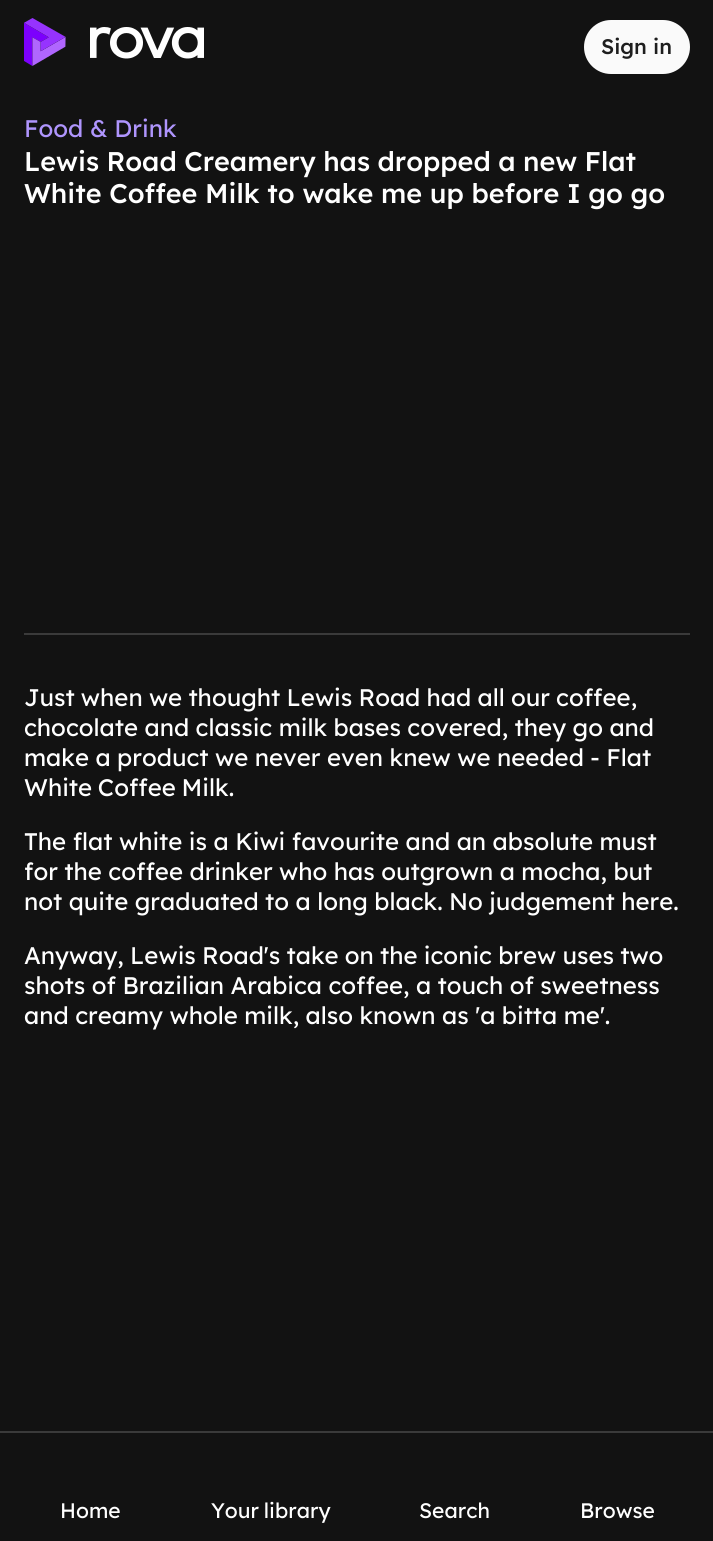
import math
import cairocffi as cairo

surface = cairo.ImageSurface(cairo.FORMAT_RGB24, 713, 1541)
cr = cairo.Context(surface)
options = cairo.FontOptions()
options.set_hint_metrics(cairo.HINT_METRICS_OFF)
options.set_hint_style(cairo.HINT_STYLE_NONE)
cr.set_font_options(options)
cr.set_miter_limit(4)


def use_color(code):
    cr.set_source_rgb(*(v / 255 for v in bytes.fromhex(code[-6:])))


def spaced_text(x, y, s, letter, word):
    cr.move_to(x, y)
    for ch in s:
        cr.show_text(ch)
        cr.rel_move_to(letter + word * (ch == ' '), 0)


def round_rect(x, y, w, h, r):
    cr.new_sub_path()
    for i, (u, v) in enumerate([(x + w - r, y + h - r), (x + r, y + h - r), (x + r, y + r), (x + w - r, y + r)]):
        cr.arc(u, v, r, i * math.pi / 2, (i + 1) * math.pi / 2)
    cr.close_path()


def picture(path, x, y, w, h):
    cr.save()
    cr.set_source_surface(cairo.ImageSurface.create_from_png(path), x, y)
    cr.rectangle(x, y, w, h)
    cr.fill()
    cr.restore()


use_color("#121212")
cr.paint()
picture("img1.png", 24, 18, 180, 48)
use_color("#fafafa")
round_rect(584, 20, 106, 54, 27)
cr.fill()
cr.select_font_face("Lexend Medium")
cr.set_font_size(21)
use_color("#1e1e1e")
cr.move_to(601, 54)
cr.show_text("Sign in")
use_color("#3a3a3a")
cr.rectangle(24, 633, 666, 2)
cr.fill()
cr.select_font_face("Lexend")
cr.set_font_size(24)
use_color("#af95fd")
cr.move_to(24, 137)
cr.show_text("Food & Drink")
cr.select_font_face("Lexend Medium")
cr.set_font_size(27)
use_color("#ffffff")
spaced_text(24, 171, "Lewis Road Creamery has dropped a new Flat", 0, -0.5)
spaced_text(24, 203, "White Coffee Milk to wake me up before I go go", 0, -0.25)
cr.select_font_face("Lexend")
cr.set_font_size(24)
spaced_text(24, 706, "Just when we thought Lewis Road had all our coffee,", 0, -0.5)
spaced_text(24, 736, "chocolate and classic milk bases covered, they go and", 0, -0.25)
spaced_text(24, 766, "make a product we never even knew we needed - Flat", 0, -0.25)
spaced_text(24, 796, "White Coffee Milk.", 0, -1)
spaced_text(24, 850, "The flat white is a Kiwi favourite and an absolute must", 0, -0.25)
spaced_text(24, 880, "for the coffee drinker who has outgrown a mocha, but", 0, -0.25)
spaced_text(24, 910, "not quite graduated to a long black. No judgement here.", 0, -0.25)
spaced_text(24, 964, "Anyway, Lewis Road's take on the iconic brew uses two", 0, -0.5)
spaced_text(24, 994, "shots of Brazilian Arabica coffee, a touch of sweetness", 0, -0.25)
spaced_text(24, 1024, "and creamy whole milk, also known as 'a bitta me'.", 0, -0.25)
use_color("#3a3a3a")
cr.rectangle(0, 1431, 713, 2)
cr.fill()
cr.set_font_size(21)
use_color("#ffffff")
cr.move_to(60, 1518)
cr.show_text("Home")
spaced_text(211, 1518, "Your library", 0, -1)
cr.move_to(419, 1518)
cr.show_text("Search")
cr.move_to(580, 1518)
cr.show_text("Browse")
surface.write_to_png("result.png")
